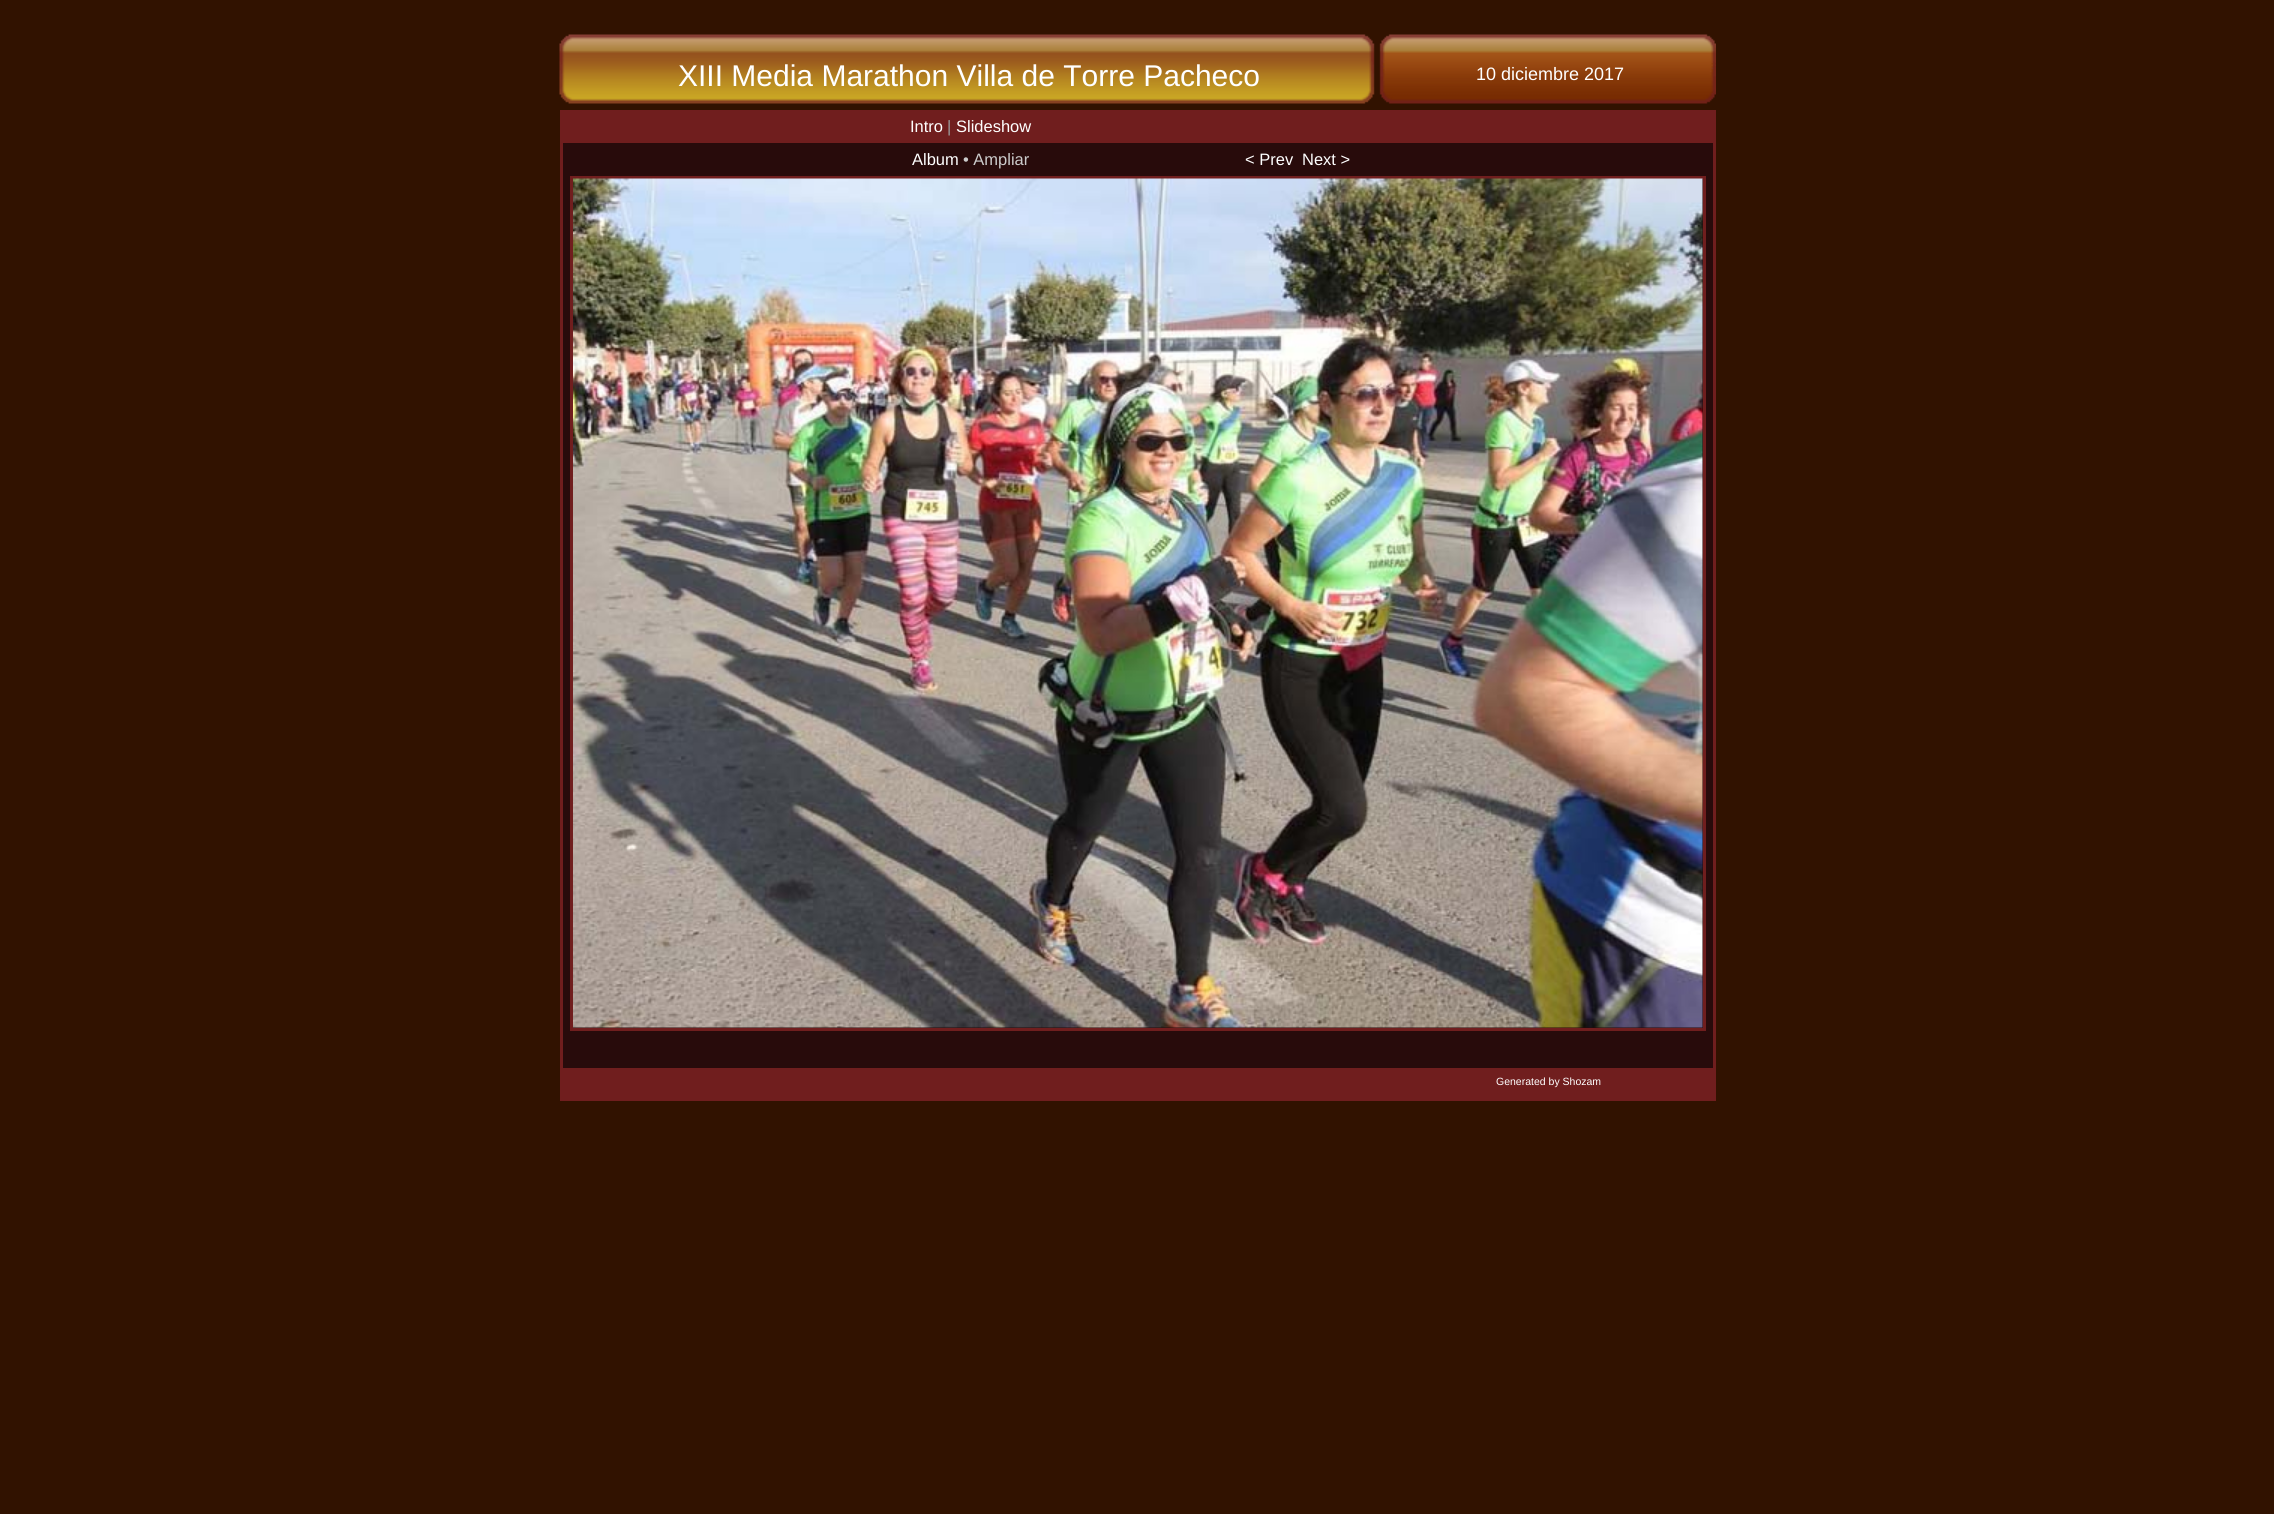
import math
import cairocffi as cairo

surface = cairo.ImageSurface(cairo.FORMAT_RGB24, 2274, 1514)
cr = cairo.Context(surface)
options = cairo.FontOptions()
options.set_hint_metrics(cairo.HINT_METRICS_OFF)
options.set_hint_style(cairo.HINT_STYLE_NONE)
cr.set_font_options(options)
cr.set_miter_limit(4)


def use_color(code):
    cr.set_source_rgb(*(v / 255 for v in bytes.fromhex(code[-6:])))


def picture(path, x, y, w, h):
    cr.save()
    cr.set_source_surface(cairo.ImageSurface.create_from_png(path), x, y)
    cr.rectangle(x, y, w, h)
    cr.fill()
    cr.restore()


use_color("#311200")
cr.paint()
picture("img1.png", 559, 34, 1157, 70)
cr.select_font_face("Liberation Sans")
cr.set_font_size(30)
use_color("#ffffff")
cr.move_to(678, 86)
cr.show_text("XIII Media Marathon Villa de Torre Pacheco")
cr.set_font_size(18)
cr.move_to(1476, 80)
cr.show_text("10 diciembre 2017")
use_color("#280b0b")
cr.rectangle(563, 143, 1150, 925)
cr.fill()
use_color("#701e1e")
cr.rectangle(1713, 110, 3, 991)
cr.fill()
cr.rectangle(560, 110, 3, 991)
cr.fill()
cr.rectangle(563, 110, 1150, 33)
cr.fill()
cr.set_font_size(16.5)
use_color("#ffffff")
cr.move_to(910, 132)
cr.show_text("Intro")
use_color("#999999")
cr.move_to(947, 132)
cr.show_text("|")
use_color("#ffffff")
cr.move_to(956, 132)
cr.show_text("Slideshow")
cr.move_to(912, 165)
cr.show_text("Album")
use_color("#cccccc")
cr.move_to(963, 165)
cr.show_text("• Ampliar")
use_color("#ffffff")
cr.move_to(1245, 165)
cr.show_text("< Prev")
cr.move_to(1302, 165)
cr.show_text("Next >")
cr.rectangle(571.5, 177.5, 1133, 852)
use_color("#701e1e")
cr.set_line_width(3)
cr.stroke()
picture("img2.png", 573, 178, 1130, 850)
cr.rectangle(563, 1068, 1150, 33)
cr.fill()
cr.set_font_size(10.5)
use_color("#ffffff")
cr.move_to(1496, 1085)
cr.show_text("Generated by Shozam")
surface.write_to_png("result.png")
